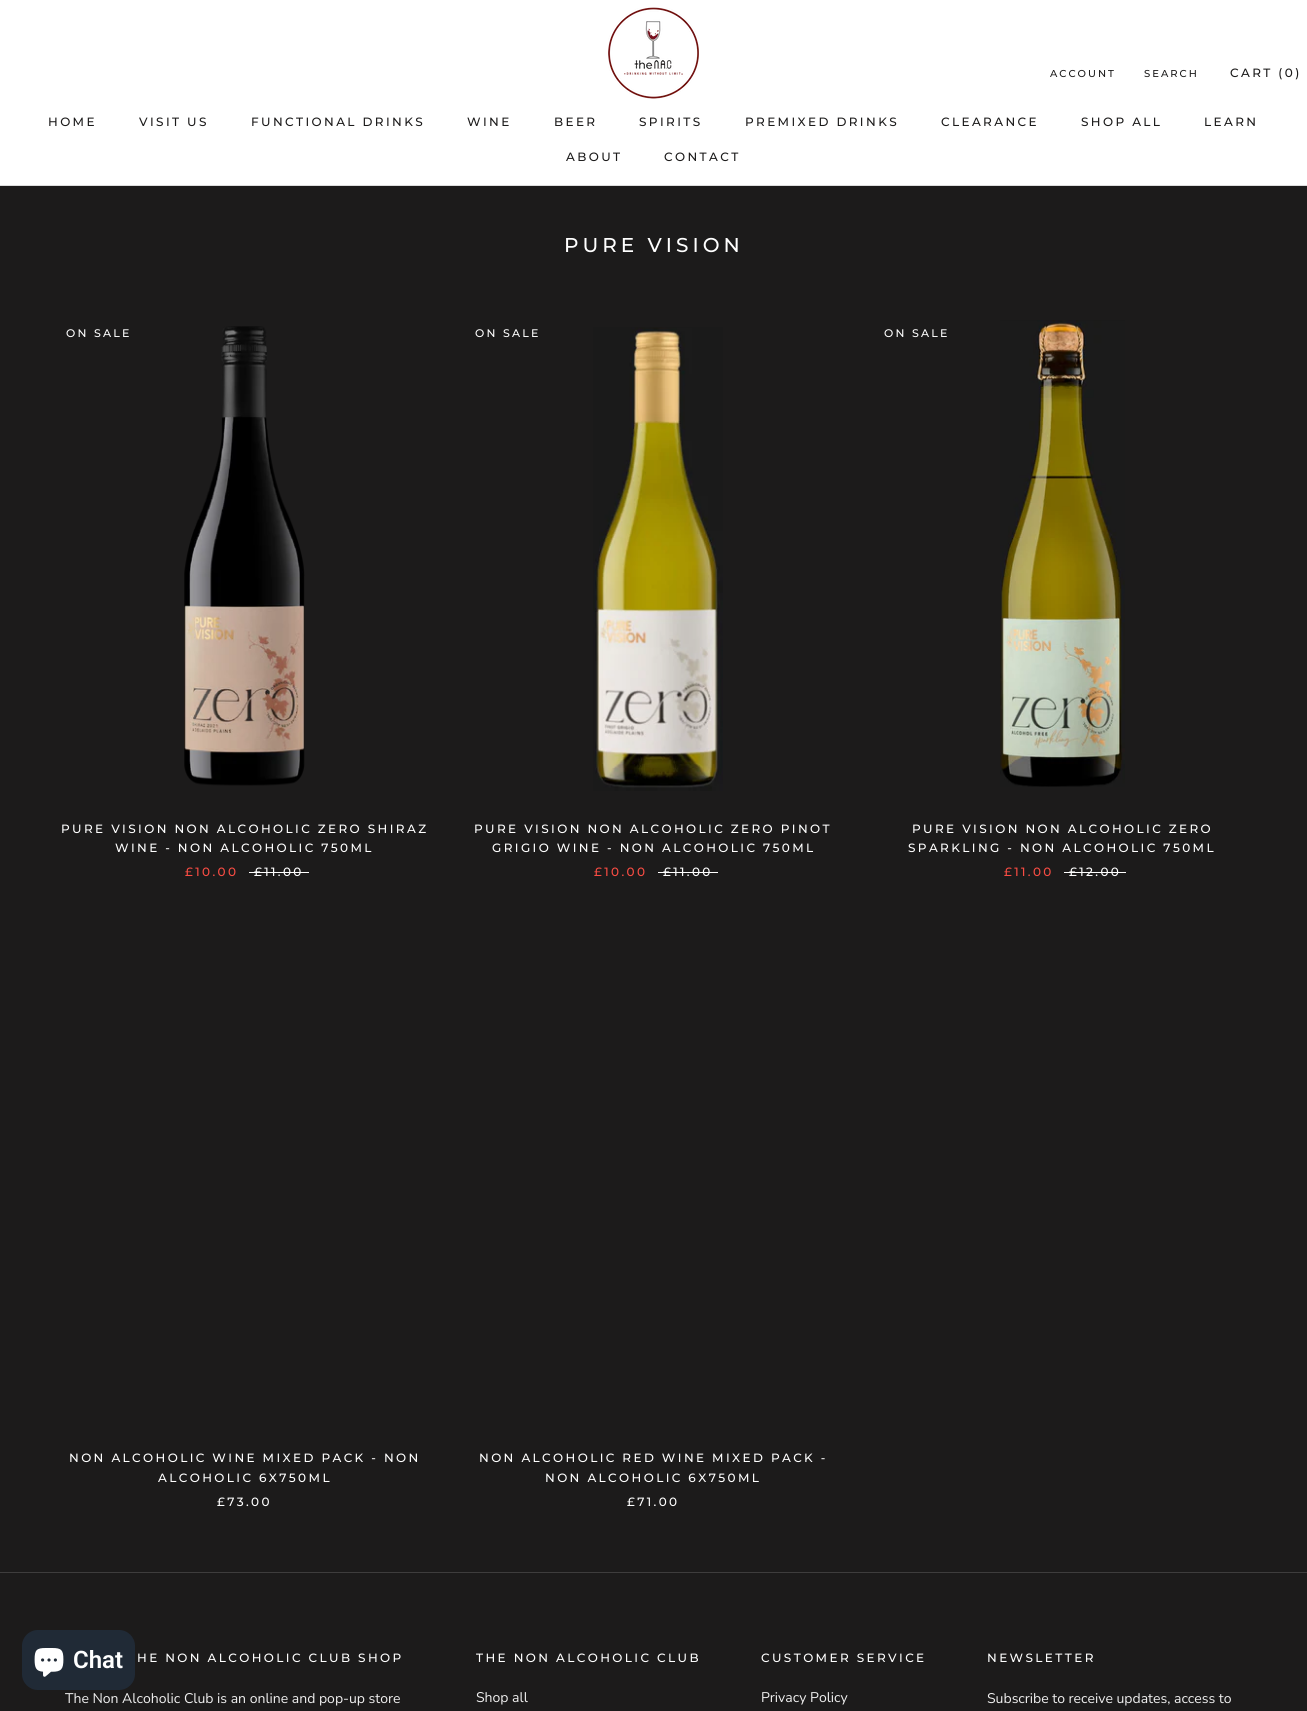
import math
import cairocffi as cairo

surface = cairo.ImageSurface(cairo.FORMAT_RGB24, 1307, 1711)
cr = cairo.Context(surface)
options = cairo.FontOptions()
options.set_hint_metrics(cairo.HINT_METRICS_OFF)
options.set_hint_style(cairo.HINT_STYLE_NONE)
cr.set_font_options(options)
cr.set_miter_limit(4)


def use_color(code):
    cr.set_source_rgb(*(v / 255 for v in bytes.fromhex(code[-6:])))


def spaced_text(x, y, s, letter, word):
    cr.move_to(x, y)
    for ch in s:
        cr.show_text(ch)
        cr.rel_move_to(letter + word * (ch == ' '), 0)


def round_rect(x, y, w, h, r):
    cr.new_sub_path()
    for i, (u, v) in enumerate([(x + w - r, y + h - r), (x + r, y + h - r), (x + r, y + r), (x + w - r, y + r)]):
        cr.arc(u, v, r, i * math.pi / 2, (i + 1) * math.pi / 2)
    cr.close_path()


def picture(path, x, y, w, h):
    cr.save()
    cr.set_source_surface(cairo.ImageSurface.create_from_png(path), x, y)
    cr.rectangle(x, y, w, h)
    cr.fill()
    cr.restore()


use_color("#1c1b1b")
cr.paint()
use_color("#ffffff")
cr.rectangle(0, 0, 1307, 185)
cr.fill()
use_color("#dddddd")
cr.rectangle(0, 185, 1307, 1)
cr.fill()
picture("img1.png", 608, 7, 91, 92)
cr.select_font_face("Montserrat Medium")
cr.set_font_size(10)
use_color("#1c1b1b")
spaced_text(1050, 77, "ACCOUNT", 2, 0)
spaced_text(1144, 77, "SEARCH", 2, 0)
cr.set_font_size(12)
spaced_text(1230, 77, "CART (0)", 2.4, 0)
spaced_text(48, 126, "HOME", 2.4, 0)
spaced_text(139, 126, "VISIT US", 2.4, 0)
spaced_text(251, 126, "FUNCTIONAL DRINKS", 2.4, 0)
spaced_text(467, 126, "WINE", 2.4, 0)
spaced_text(554, 126, "BEER", 2.4, 0)
spaced_text(639, 126, "SPIRITS", 2.4, 0)
spaced_text(745, 126, "PREMIXED DRINKS", 2.4, 0)
spaced_text(941, 126, "CLEARANCE", 2.4, 0)
spaced_text(1081, 126, "SHOP ALL", 2.4, 0)
spaced_text(1204, 126, "LEARN", 2.4, 0)
spaced_text(566, 161, "ABOUT", 2.4, 0)
spaced_text(664, 161, "CONTACT", 2.4, 0)
cr.set_font_size(20)
use_color("#ffffff")
spaced_text(564, 252, "PURE VISION", 4, 0)
cr.set_font_size(11)
spaced_text(66, 337, "ON SALE", 2.25, 0)
picture("img2.png", 184, 326, 121, 460)
cr.set_font_size(12)
spaced_text(61, 833, "PURE VISION NON ALCOHOLIC ZERO SHIRAZ", 2.4, 0)
spaced_text(115, 852, "WINE - NON ALCOHOLIC 750ML", 2.4, 0)
use_color("#f94c43")
spaced_text(185, 876, "£10.00", 2.4, 0)
use_color("#ffffff")
spaced_text(254, 876, "£11.00", 2.4, 0)
cr.rectangle(249, 872, 60, 1)
cr.fill()
cr.set_font_size(11)
spaced_text(475, 337, "ON SALE", 2.25, 0)
picture("img3.png", 593, 327, 130, 464)
cr.set_font_size(12)
spaced_text(474, 833, "PURE VISION NON ALCOHOLIC ZERO PINOT", 2.4, 0)
spaced_text(492, 852, "GRIGIO WINE - NON ALCOHOLIC 750ML", 2.4, 0)
use_color("#f94c43")
spaced_text(594, 876, "£10.00", 2.4, 0)
use_color("#ffffff")
spaced_text(663, 876, "£11.00", 2.4, 0)
cr.rectangle(658, 872, 60, 1)
cr.fill()
cr.set_font_size(11)
spaced_text(884, 337, "ON SALE", 2.25, 0)
picture("img4.png", 1000, 320, 125, 467)
cr.set_font_size(12)
spaced_text(912, 833, "PURE VISION NON ALCOHOLIC ZERO", 2.4, 0)
spaced_text(908, 852, "SPARKLING - NON ALCOHOLIC 750ML", 2.4, 0)
use_color("#f94c43")
spaced_text(1004, 876, "£11.00", 2.4, 0)
use_color("#ffffff")
spaced_text(1069, 876, "£12.00", 2.4, 0)
cr.rectangle(1064, 872, 62, 1)
cr.fill()
spaced_text(69, 1462, "NON ALCOHOLIC WINE MIXED PACK - NON", 2.4, 0)
spaced_text(158, 1482, "ALCOHOLIC 6X750ML", 2.4, 0)
spaced_text(217, 1506, "£73.00", 2.4, 0)
spaced_text(479, 1462, "NON ALCOHOLIC RED WINE MIXED PACK -", 2.4, 0)
spaced_text(545, 1482, "NON ALCOHOLIC 6X750ML", 2.4, 0)
spaced_text(627, 1506, "£71.00", 2.4, 0)
use_color("#3e3d3d")
cr.rectangle(0, 1572, 1307, 1)
cr.fill()
use_color("#ffffff")
spaced_text(137, 1662, "HE NON ALCOHOLIC CLUB SHOP", 2.4, 0)
cr.select_font_face("Nunito Sans")
cr.set_font_size(14)
use_color("#efefef")
cr.move_to(65, 1703)
cr.show_text("The Non Alcoholic Club is an online and pop-up store")
cr.select_font_face("Montserrat Medium")
cr.set_font_size(12)
use_color("#ffffff")
spaced_text(476, 1662, "THE NON ALCOHOLIC CLUB", 2.4, 0)
cr.select_font_face("Nunito Sans")
cr.set_font_size(14)
use_color("#efefef")
cr.move_to(476, 1702)
cr.show_text("Shop all")
cr.select_font_face("Montserrat Medium")
cr.set_font_size(12)
use_color("#ffffff")
spaced_text(761, 1662, "CUSTOMER SERVICE", 2.4, 0)
cr.select_font_face("Nunito Sans")
cr.set_font_size(14)
use_color("#efefef")
cr.move_to(761, 1702)
cr.show_text("Privacy Policy")
cr.select_font_face("Montserrat Medium")
cr.set_font_size(12)
use_color("#ffffff")
spaced_text(987, 1662, "NEWSLETTER", 2.4, 0)
cr.select_font_face("Nunito Sans")
cr.set_font_size(14)
use_color("#efefef")
cr.move_to(987, 1703)
cr.show_text("Subscribe to receive updates, access to")
use_color("#202a36")
round_rect(22, 1630, 113, 60, 16)
cr.fill()
picture("img5.png", 34, 1648, 30, 29)
cr.select_font_face("Roboto SemiBold")
cr.set_font_size(24)
use_color("#ffffff")
cr.move_to(73, 1668)
cr.show_text("Chat")
surface.write_to_png("result.png")
